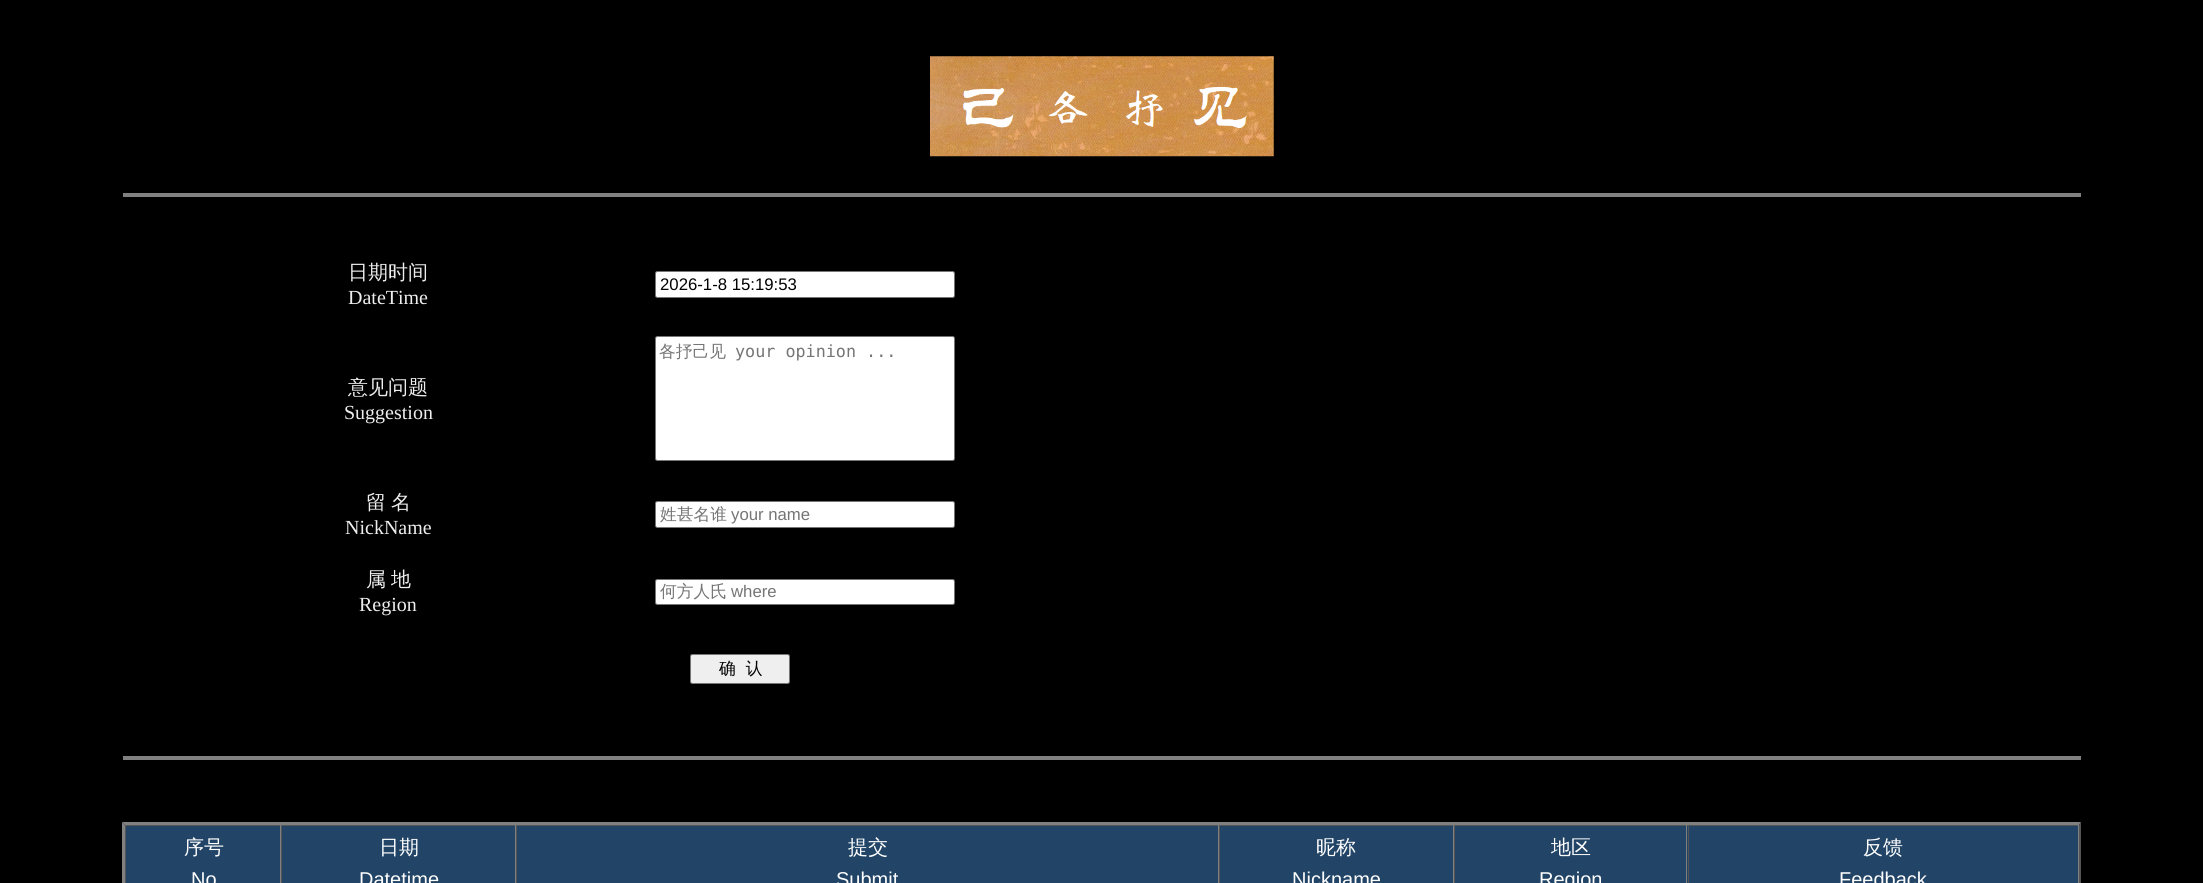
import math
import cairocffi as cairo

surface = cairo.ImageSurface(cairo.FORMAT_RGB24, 2203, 883)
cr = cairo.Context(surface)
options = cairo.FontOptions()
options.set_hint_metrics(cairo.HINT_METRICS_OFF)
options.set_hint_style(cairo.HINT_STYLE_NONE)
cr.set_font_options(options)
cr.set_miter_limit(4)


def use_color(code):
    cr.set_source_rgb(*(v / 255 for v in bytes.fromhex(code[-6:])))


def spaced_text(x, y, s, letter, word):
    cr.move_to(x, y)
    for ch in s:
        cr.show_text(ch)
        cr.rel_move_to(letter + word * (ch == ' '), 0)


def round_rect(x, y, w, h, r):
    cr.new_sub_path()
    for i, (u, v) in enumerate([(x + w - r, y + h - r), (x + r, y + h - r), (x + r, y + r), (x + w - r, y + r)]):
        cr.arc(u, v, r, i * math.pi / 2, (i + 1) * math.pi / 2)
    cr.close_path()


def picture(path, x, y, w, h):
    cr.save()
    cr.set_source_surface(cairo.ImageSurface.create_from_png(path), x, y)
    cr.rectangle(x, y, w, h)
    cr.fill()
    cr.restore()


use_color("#000000")
cr.paint()
picture("img1.png", 930, 56, 344, 101)
use_color("#808080")
cr.rectangle(123, 193, 1958, 4)
cr.fill()
cr.select_font_face("WenQuanYi Zen Hei Medium")
cr.set_font_size(20)
use_color("#eeeeee")
cr.move_to(348, 279)
cr.show_text("日期时间")
cr.select_font_face("Liberation Serif")
cr.move_to(348, 304)
cr.show_text("DateTime")
use_color("#ffffff")
round_rect(655.5, 271.5, 299, 26, 2)
cr.fill_preserve()
use_color("#767676")
cr.set_line_width(1)
cr.stroke()
cr.select_font_face("Liberation Sans")
cr.set_font_size(16.75)
use_color("#000000")
cr.move_to(660, 290)
cr.show_text("2026-1-8 15:19:53")
use_color("#ffffff")
round_rect(655.5, 336.5, 299, 124, 2)
cr.fill_preserve()
use_color("#767676")
cr.stroke()
cr.select_font_face("WenQuanYi Zen Hei Medium")
use_color("#757575")
cr.move_to(659, 357)
cr.show_text("各抒己见")
cr.select_font_face("DejaVu Sans Mono")
cr.move_to(735, 357)
cr.show_text("your opinion ...")
cr.select_font_face("WenQuanYi Zen Hei Medium")
cr.set_font_size(20)
use_color("#eeeeee")
cr.move_to(348, 394)
cr.show_text("意见问题")
cr.select_font_face("Liberation Serif")
cr.move_to(344, 419)
cr.show_text("Suggestion")
cr.select_font_face("WenQuanYi Zen Hei Medium")
spaced_text(366, 509, "留 名", 0, -1)
cr.select_font_face("Liberation Serif")
cr.move_to(345, 534)
cr.show_text("NickName")
use_color("#ffffff")
round_rect(655.5, 501.5, 299, 26, 2)
cr.fill_preserve()
use_color("#767676")
cr.stroke()
cr.select_font_face("WenQuanYi Zen Hei Medium")
cr.set_font_size(16.75)
use_color("#757575")
cr.move_to(660, 520)
cr.show_text("姓甚名谁")
cr.select_font_face("Liberation Sans")
cr.move_to(731, 520)
cr.show_text("your name")
cr.select_font_face("WenQuanYi Zen Hei Medium")
cr.set_font_size(20)
use_color("#eeeeee")
spaced_text(366, 586, "属 地", 0, -1)
cr.select_font_face("Liberation Serif")
cr.move_to(359, 611)
cr.show_text("Region")
use_color("#ffffff")
round_rect(655.5, 579.5, 299, 25, 2)
cr.fill_preserve()
use_color("#767676")
cr.stroke()
cr.select_font_face("WenQuanYi Zen Hei Medium")
cr.set_font_size(16.75)
use_color("#757575")
cr.move_to(660, 597)
cr.show_text("何方人氏")
cr.select_font_face("Liberation Sans")
cr.move_to(731, 597)
cr.show_text("where")
use_color("#efefef")
round_rect(690.5, 654.5, 99, 29, 2)
cr.fill_preserve()
use_color("#767676")
cr.stroke()
cr.select_font_face("WenQuanYi Zen Hei Medium")
use_color("#000000")
cr.move_to(719, 674)
cr.show_text("确  认")
use_color("#808080")
cr.rectangle(123, 756, 1958, 4)
cr.fill()
cr.new_path()
cr.move_to(122, 822)
cr.line_to(2081, 822)
cr.line_to(2079, 825)
cr.line_to(125, 825)
cr.close_path()
cr.fill()
use_color("#555555")
cr.new_path()
cr.move_to(2081, 822)
cr.line_to(2081, 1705)
cr.line_to(2079, 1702)
cr.line_to(2079, 825)
cr.close_path()
cr.fill()
use_color("#808080")
cr.new_path()
cr.move_to(122, 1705)
cr.line_to(122, 822)
cr.line_to(125, 825)
cr.line_to(125, 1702)
cr.close_path()
cr.fill()
use_color("#224466")
cr.rectangle(126, 826, 154, 57)
cr.fill()
use_color("#555555")
cr.rectangle(125, 825, 1954, 1)
cr.fill()
use_color("#808080")
cr.rectangle(280, 825, 1, 58)
cr.fill()
use_color("#555555")
cr.rectangle(125, 825, 1, 58)
cr.fill()
cr.set_font_size(20)
use_color("#ffffff")
cr.move_to(184, 854)
cr.show_text("序号")
cr.select_font_face("Liberation Sans")
cr.move_to(191, 886)
cr.show_text("No")
use_color("#224466")
cr.rectangle(282, 826, 233, 57)
cr.fill()
use_color("#808080")
cr.rectangle(515, 825, 1, 58)
cr.fill()
use_color("#555555")
cr.rectangle(281, 825, 1, 58)
cr.fill()
cr.select_font_face("WenQuanYi Zen Hei Medium")
use_color("#ffffff")
cr.move_to(379, 854)
cr.show_text("日期")
cr.select_font_face("Liberation Sans")
cr.move_to(359, 886)
cr.show_text("Datetime")
use_color("#224466")
cr.rectangle(517, 826, 701, 57)
cr.fill()
use_color("#808080")
cr.rectangle(1218, 825, 1, 58)
cr.fill()
use_color("#555555")
cr.rectangle(516, 825, 1, 58)
cr.fill()
cr.select_font_face("WenQuanYi Zen Hei Medium")
use_color("#ffffff")
cr.move_to(848, 854)
cr.show_text("提交")
cr.select_font_face("Liberation Sans")
cr.move_to(836, 886)
cr.show_text("Submit")
use_color("#224466")
cr.rectangle(1220, 826, 233, 57)
cr.fill()
use_color("#808080")
cr.rectangle(1453, 825, 1, 58)
cr.fill()
use_color("#555555")
cr.rectangle(1219, 825, 1, 58)
cr.fill()
cr.select_font_face("WenQuanYi Zen Hei Medium")
use_color("#ffffff")
cr.move_to(1316, 854)
cr.show_text("昵称")
cr.select_font_face("Liberation Sans")
cr.move_to(1292, 886)
cr.show_text("Nickname")
use_color("#224466")
cr.rectangle(1455, 826, 233, 57)
cr.fill()
use_color("#808080")
cr.rectangle(1686, 825, 1, 58)
cr.fill()
use_color("#555555")
cr.rectangle(1454, 825, 1, 58)
cr.fill()
cr.select_font_face("WenQuanYi Zen Hei Medium")
use_color("#ffffff")
cr.move_to(1551, 854)
cr.show_text("地区")
cr.select_font_face("Liberation Sans")
cr.move_to(1539, 886)
cr.show_text("Region")
use_color("#224466")
cr.rectangle(1689, 826, 389, 57)
cr.fill()
use_color("#808080")
cr.rectangle(2078, 825, 1, 58)
cr.fill()
use_color("#555555")
cr.rectangle(1688, 825, 1, 58)
cr.fill()
cr.select_font_face("WenQuanYi Zen Hei Medium")
use_color("#ffffff")
cr.move_to(1863, 854)
cr.show_text("反馈")
cr.select_font_face("Liberation Sans")
cr.move_to(1839, 886)
cr.show_text("Feedback")
surface.write_to_png("result.png")
